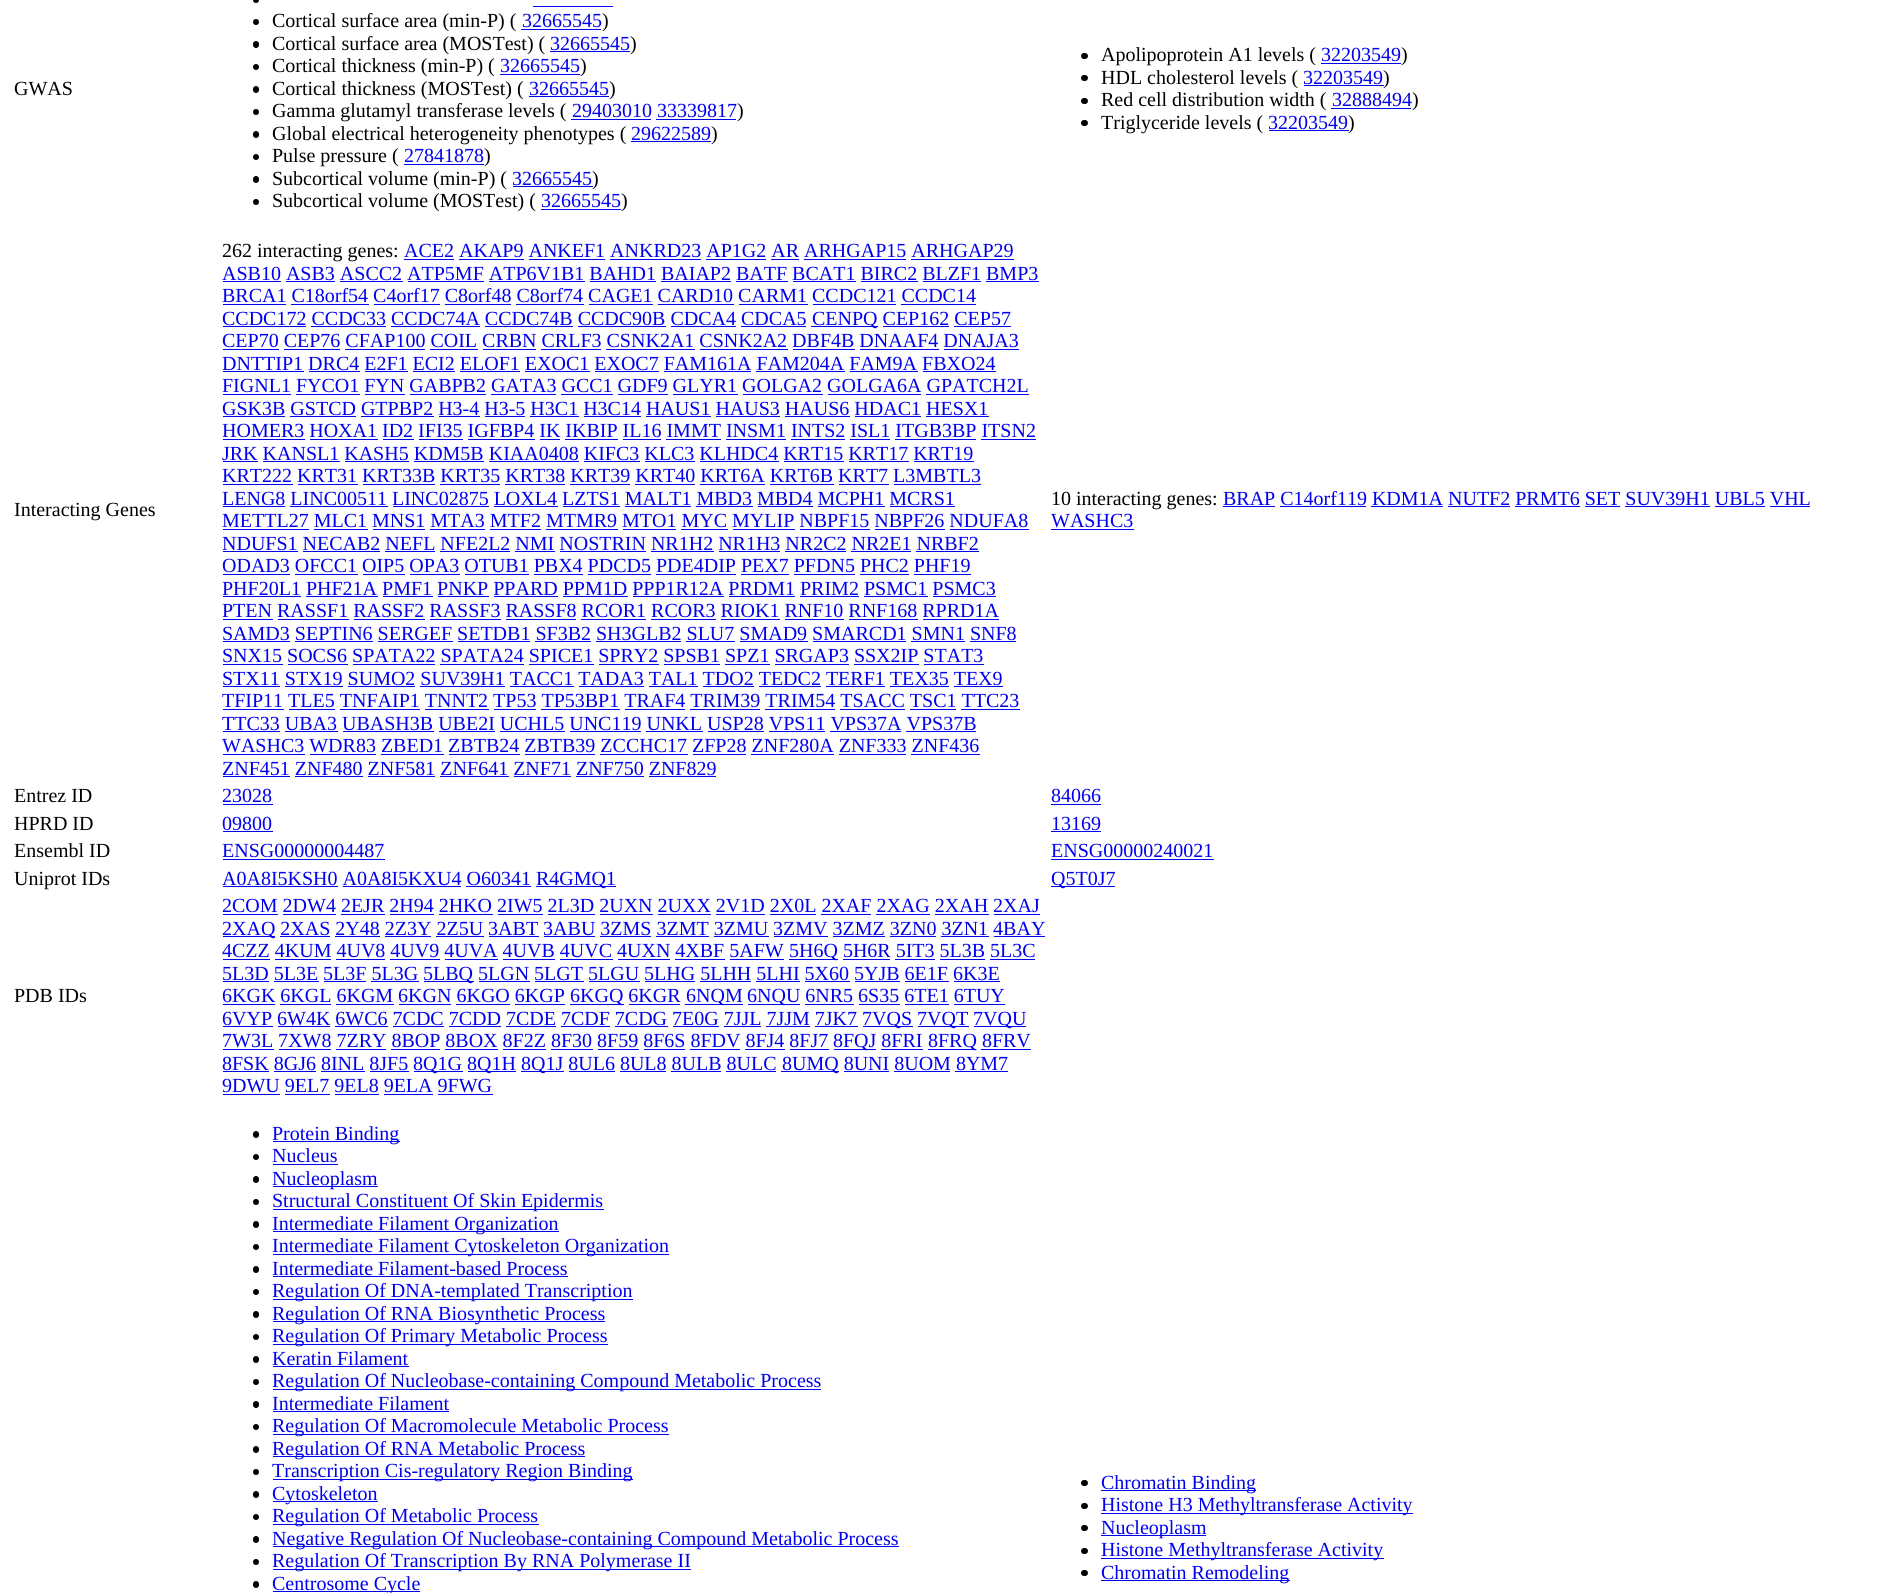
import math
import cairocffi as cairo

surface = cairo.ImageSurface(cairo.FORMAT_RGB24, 1888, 1593)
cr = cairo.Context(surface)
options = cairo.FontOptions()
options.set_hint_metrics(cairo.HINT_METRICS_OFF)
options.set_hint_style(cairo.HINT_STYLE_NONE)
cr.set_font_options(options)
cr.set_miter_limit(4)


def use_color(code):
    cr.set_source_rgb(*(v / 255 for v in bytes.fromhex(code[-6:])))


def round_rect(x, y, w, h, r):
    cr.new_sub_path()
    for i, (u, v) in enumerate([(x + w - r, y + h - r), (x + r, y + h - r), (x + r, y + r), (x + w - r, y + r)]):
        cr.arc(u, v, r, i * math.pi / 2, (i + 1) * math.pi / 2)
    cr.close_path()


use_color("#ffffff")
cr.paint()
cr.select_font_face("Liberation Serif")
cr.set_font_size(20)
use_color("#000000")
cr.move_to(14, 95)
cr.show_text("GWAS")
cr.new_path()
cr.arc(256, 0, 3, 0, 2 * math.pi)
cr.fill()
use_color("#0000ee")
cr.rectangle(533, 6, 80, 1)
cr.fill()
use_color("#000000")
cr.arc(256, 22, 3, 0, 2 * math.pi)
cr.fill()
cr.move_to(272, 27)
cr.show_text("Cortical surface area (min-P) (")
use_color("#0000ee")
cr.move_to(522, 27)
cr.show_text("32665545")
cr.rectangle(521, 29, 80, 1)
cr.fill()
use_color("#000000")
cr.move_to(602, 27)
cr.show_text(")")
round_rect(253, 41, 6, 7, 3)
cr.fill()
cr.move_to(272, 50)
cr.show_text("Cortical surface area (MOSTest) (")
use_color("#0000ee")
cr.move_to(550, 50)
cr.show_text("32665545")
cr.rectangle(550, 51, 80, 1)
cr.fill()
use_color("#000000")
cr.move_to(630, 50)
cr.show_text(")")
cr.new_path()
cr.arc(256, 67, 3, 0, 2 * math.pi)
cr.fill()
cr.move_to(272, 72)
cr.show_text("Cortical thickness (min-P) (")
use_color("#0000ee")
cr.move_to(500, 72)
cr.show_text("32665545")
cr.rectangle(500, 74, 80, 1)
cr.fill()
use_color("#000000")
cr.move_to(580, 72)
cr.show_text(")")
round_rect(253, 86, 6, 7, 3)
cr.fill()
cr.move_to(272, 95)
cr.show_text("Cortical thickness (MOSTest) (")
use_color("#0000ee")
cr.move_to(529, 95)
cr.show_text("32665545")
cr.rectangle(529, 96, 80, 1)
cr.fill()
use_color("#000000")
cr.move_to(609, 95)
cr.show_text(")")
cr.new_path()
cr.arc(256, 112, 3, 0, 2 * math.pi)
cr.fill()
cr.move_to(272, 117)
cr.show_text("Gamma glutamyl transferase levels (")
use_color("#0000ee")
cr.move_to(572, 117)
cr.show_text("29403010 33339817")
cr.rectangle(571, 119, 80, 1)
cr.fill()
use_color("#000000")
cr.move_to(737, 117)
cr.show_text(")")
use_color("#0000ee")
cr.rectangle(656, 119, 80, 1)
cr.fill()
use_color("#000000")
round_rect(253, 131, 6, 7, 3)
cr.fill()
cr.move_to(272, 140)
cr.show_text("Global electrical heterogeneity phenotypes (")
use_color("#0000ee")
cr.move_to(631, 140)
cr.show_text("29622589")
cr.rectangle(631, 141, 80, 1)
cr.fill()
use_color("#000000")
cr.move_to(711, 140)
cr.show_text(")")
cr.new_path()
cr.arc(256, 157, 3, 0, 2 * math.pi)
cr.fill()
cr.move_to(272, 162)
cr.show_text("Pulse pressure (")
use_color("#0000ee")
cr.move_to(404, 162)
cr.show_text("27841878")
cr.rectangle(404, 164, 80, 1)
cr.fill()
use_color("#000000")
cr.move_to(484, 162)
cr.show_text(")")
round_rect(253, 176, 6, 7, 3)
cr.fill()
cr.move_to(272, 185)
cr.show_text("Subcortical volume (min-P) (")
use_color("#0000ee")
cr.move_to(512, 185)
cr.show_text("32665545")
cr.rectangle(513, 186, 80, 1)
cr.fill()
use_color("#000000")
cr.move_to(592, 185)
cr.show_text(")")
cr.new_path()
cr.arc(256, 202, 3, 0, 2 * math.pi)
cr.fill()
cr.move_to(272, 207)
cr.show_text("Subcortical volume (MOSTest) (")
use_color("#0000ee")
cr.move_to(541, 207)
cr.show_text("32665545")
cr.rectangle(541, 209, 80, 1)
cr.fill()
use_color("#000000")
cr.move_to(621, 207)
cr.show_text(")")
round_rect(1081, 53, 7, 6, 3)
cr.fill()
cr.move_to(1101, 61)
cr.show_text("Apolipoprotein A1 levels (")
use_color("#0000ee")
cr.move_to(1321, 61)
cr.show_text("32203549")
cr.rectangle(1321, 63, 80, 1)
cr.fill()
use_color("#000000")
cr.move_to(1401, 61)
cr.show_text(")")
round_rect(1081, 75, 7, 6, 3)
cr.fill()
cr.move_to(1101, 84)
cr.show_text("HDL cholesterol levels (")
use_color("#0000ee")
cr.move_to(1303, 84)
cr.show_text("32203549")
cr.rectangle(1304, 85, 80, 1)
cr.fill()
use_color("#000000")
cr.move_to(1383, 84)
cr.show_text(")")
round_rect(1081, 98, 7, 6, 3)
cr.fill()
cr.move_to(1101, 106)
cr.show_text("Red cell distribution width (")
use_color("#0000ee")
cr.move_to(1332, 106)
cr.show_text("32888494")
cr.rectangle(1331, 108, 80, 1)
cr.fill()
use_color("#000000")
cr.move_to(1412, 106)
cr.show_text(")")
round_rect(1081, 120, 7, 6, 3)
cr.fill()
cr.move_to(1101, 129)
cr.show_text("Triglyceride levels (")
use_color("#0000ee")
cr.move_to(1268, 129)
cr.show_text("32203549")
cr.rectangle(1269, 130, 80, 1)
cr.fill()
use_color("#000000")
cr.move_to(1348, 129)
cr.show_text(")")
cr.move_to(14, 516)
cr.show_text("Interacting Genes")
cr.move_to(222, 257)
cr.show_text("262 interacting genes:")
use_color("#0000ee")
cr.move_to(404, 257)
cr.show_text("ACE2 AKAP9 ANKEF1 ANKRD23 AP1G2 AR ARHGAP15 ARHGAP29")
cr.rectangle(404, 259, 50, 1)
cr.fill()
cr.rectangle(459, 259, 65, 1)
cr.fill()
cr.rectangle(529, 259, 76, 1)
cr.fill()
cr.rectangle(610, 259, 91, 1)
cr.fill()
cr.rectangle(706, 259, 60, 1)
cr.fill()
cr.rectangle(771, 259, 28, 1)
cr.fill()
cr.rectangle(804, 259, 102, 1)
cr.fill()
cr.rectangle(911, 259, 103, 1)
cr.fill()
cr.move_to(222, 280)
cr.show_text("ASB10 ASB3 ASCC2 ATP5MF ATP6V1B1 BAHD1 BAIAP2 BATF BCAT1 BIRC2 BLZF1 BMP3")
cr.rectangle(223, 281, 58, 1)
cr.fill()
cr.rectangle(286, 281, 49, 1)
cr.fill()
cr.rectangle(340, 281, 63, 1)
cr.fill()
cr.rectangle(408, 281, 76, 1)
cr.fill()
cr.rectangle(489, 281, 96, 1)
cr.fill()
cr.rectangle(590, 281, 66, 1)
cr.fill()
cr.rectangle(661, 281, 70, 1)
cr.fill()
cr.rectangle(736, 281, 52, 1)
cr.fill()
cr.rectangle(793, 281, 63, 1)
cr.fill()
cr.rectangle(861, 281, 57, 1)
cr.fill()
cr.rectangle(923, 281, 58, 1)
cr.fill()
cr.rectangle(986, 281, 53, 1)
cr.fill()
cr.move_to(222, 302)
cr.show_text("BRCA1 C18orf54 C4orf17 C8orf48 C8orf74 CAGE1 CARD10 CARM1 CCDC121 CCDC14")
cr.rectangle(223, 304, 63, 1)
cr.fill()
cr.rectangle(291, 304, 78, 1)
cr.fill()
cr.rectangle(374, 304, 66, 1)
cr.fill()
cr.rectangle(445, 304, 66, 1)
cr.fill()
cr.rectangle(516, 304, 68, 1)
cr.fill()
cr.rectangle(589, 304, 64, 1)
cr.fill()
cr.rectangle(658, 304, 76, 1)
cr.fill()
cr.rectangle(739, 304, 69, 1)
cr.fill()
cr.rectangle(813, 304, 83, 1)
cr.fill()
cr.rectangle(901, 304, 75, 1)
cr.fill()
cr.move_to(222, 325)
cr.show_text("CCDC172 CCDC33 CCDC74A CCDC74B CCDC90B CDCA4 CDCA5")
cr.rectangle(223, 326, 83, 1)
cr.fill()
cr.rectangle(811, 326, 67, 1)
cr.fill()
cr.move_to(812, 325)
cr.show_text("CENPQ CEP162 CEP57")
cr.rectangle(311, 326, 75, 1)
cr.fill()
cr.rectangle(391, 326, 89, 1)
cr.fill()
cr.rectangle(485, 326, 88, 1)
cr.fill()
cr.rectangle(578, 326, 88, 1)
cr.fill()
cr.rectangle(671, 326, 65, 1)
cr.fill()
cr.rectangle(741, 326, 65, 1)
cr.fill()
cr.rectangle(883, 326, 66, 1)
cr.fill()
cr.rectangle(954, 326, 57, 1)
cr.fill()
cr.move_to(222, 347)
cr.show_text("CEP70 CEP76 CFAP100 COIL CRBN CRLF3 CSNK2A1 CSNK2A2 DBF4B DNAAF4 DNAJA3")
cr.rectangle(223, 349, 56, 1)
cr.fill()
cr.rectangle(284, 349, 56, 1)
cr.fill()
cr.rectangle(345, 349, 80, 1)
cr.fill()
cr.rectangle(430, 349, 48, 1)
cr.fill()
cr.rectangle(483, 349, 53, 1)
cr.fill()
cr.rectangle(541, 349, 60, 1)
cr.fill()
cr.rectangle(606, 349, 89, 1)
cr.fill()
cr.rectangle(700, 349, 88, 1)
cr.fill()
cr.rectangle(793, 349, 62, 1)
cr.fill()
cr.rectangle(860, 349, 79, 1)
cr.fill()
cr.rectangle(944, 349, 75, 1)
cr.fill()
cr.move_to(222, 370)
cr.show_text("DNTTIP1 DRC4 E2F1 ECI2 ELOF1 EXOC1 EXOC7 FAM161A FAM204A FAM9A FBXO24")
cr.rectangle(223, 371, 81, 1)
cr.fill()
cr.rectangle(309, 371, 51, 1)
cr.fill()
cr.rectangle(365, 371, 43, 1)
cr.fill()
cr.rectangle(413, 371, 42, 1)
cr.fill()
cr.rectangle(460, 371, 60, 1)
cr.fill()
cr.rectangle(525, 371, 65, 1)
cr.fill()
cr.rectangle(595, 371, 64, 1)
cr.fill()
cr.rectangle(664, 371, 87, 1)
cr.fill()
cr.rectangle(756, 371, 89, 1)
cr.fill()
cr.rectangle(850, 371, 68, 1)
cr.fill()
cr.rectangle(923, 371, 73, 1)
cr.fill()
cr.move_to(222, 392)
cr.show_text("FIGNL1 FYCO1 FYN GABPB2 GATA3 GCC1 GDF9 GLYR1 GOLGA2 GOLGA6A GPATCH2L")
cr.rectangle(223, 394, 68, 1)
cr.fill()
cr.rectangle(296, 394, 64, 1)
cr.fill()
cr.rectangle(365, 394, 40, 1)
cr.fill()
cr.rectangle(410, 394, 76, 1)
cr.fill()
cr.rectangle(491, 394, 65, 1)
cr.fill()
cr.rectangle(561, 394, 52, 1)
cr.fill()
cr.rectangle(618, 394, 50, 1)
cr.fill()
cr.rectangle(673, 394, 65, 1)
cr.fill()
cr.rectangle(743, 394, 80, 1)
cr.fill()
cr.rectangle(828, 394, 93, 1)
cr.fill()
cr.rectangle(926, 394, 103, 1)
cr.fill()
cr.move_to(222, 415)
cr.show_text("GSK3B GSTCD GTPBP2 H3-4 H3-5 H3C1 H3C14 HAUS1 HAUS3 HAUS6 HDAC1 HESX1")
cr.rectangle(223, 416, 62, 1)
cr.fill()
cr.rectangle(290, 416, 66, 1)
cr.fill()
cr.rectangle(361, 416, 73, 1)
cr.fill()
cr.rectangle(439, 416, 41, 1)
cr.fill()
cr.rectangle(485, 416, 40, 1)
cr.fill()
cr.rectangle(530, 416, 49, 1)
cr.fill()
cr.rectangle(584, 416, 57, 1)
cr.fill()
cr.rectangle(646, 416, 65, 1)
cr.fill()
cr.rectangle(716, 416, 64, 1)
cr.fill()
cr.rectangle(785, 416, 65, 1)
cr.fill()
cr.rectangle(855, 416, 66, 1)
cr.fill()
cr.rectangle(926, 416, 63, 1)
cr.fill()
cr.move_to(222, 437)
cr.show_text("HOMER3 HOXA1 ID2 IFI35 IGFBP4 IK IKBIP IL16 IMMT INSM1 INTS2 ISL1 ITGB3BP ITSN2")
cr.rectangle(223, 439, 82, 1)
cr.fill()
cr.rectangle(310, 439, 68, 1)
cr.fill()
cr.rectangle(383, 439, 31, 1)
cr.fill()
cr.rectangle(419, 439, 44, 1)
cr.fill()
cr.rectangle(468, 439, 67, 1)
cr.fill()
cr.rectangle(540, 439, 20, 1)
cr.fill()
cr.rectangle(565, 439, 53, 1)
cr.fill()
cr.rectangle(623, 439, 38, 1)
cr.fill()
cr.rectangle(666, 439, 55, 1)
cr.fill()
cr.rectangle(726, 439, 60, 1)
cr.fill()
cr.rectangle(791, 439, 54, 1)
cr.fill()
cr.rectangle(850, 439, 40, 1)
cr.fill()
cr.rectangle(895, 439, 81, 1)
cr.fill()
cr.rectangle(981, 439, 55, 1)
cr.fill()
cr.move_to(222, 460)
cr.show_text("JRK KANSL1 KASH5 KDM5B KIAA0408 KIFC3 KLC3 KLHDC4 KRT15 KRT17 KRT19")
cr.rectangle(223, 461, 35, 1)
cr.fill()
cr.rectangle(263, 461, 77, 1)
cr.fill()
cr.rectangle(345, 461, 64, 1)
cr.fill()
cr.rectangle(414, 461, 70, 1)
cr.fill()
cr.rectangle(489, 461, 90, 1)
cr.fill()
cr.rectangle(584, 461, 56, 1)
cr.fill()
cr.rectangle(645, 461, 50, 1)
cr.fill()
cr.rectangle(700, 461, 79, 1)
cr.fill()
cr.rectangle(784, 461, 60, 1)
cr.fill()
cr.rectangle(849, 461, 60, 1)
cr.fill()
cr.rectangle(914, 461, 60, 1)
cr.fill()
cr.move_to(222, 482)
cr.show_text("KRT222 KRT31 KRT33B KRT35 KRT38 KRT39 KRT40 KRT6A KRT6B KRT7 L3MBTL3")
cr.rectangle(223, 484, 70, 1)
cr.fill()
cr.rectangle(298, 484, 60, 1)
cr.fill()
cr.rectangle(363, 484, 72, 1)
cr.fill()
cr.rectangle(440, 484, 60, 1)
cr.fill()
cr.rectangle(505, 484, 60, 1)
cr.fill()
cr.rectangle(570, 484, 60, 1)
cr.fill()
cr.rectangle(635, 484, 60, 1)
cr.fill()
cr.rectangle(700, 484, 65, 1)
cr.fill()
cr.rectangle(770, 484, 64, 1)
cr.fill()
cr.rectangle(839, 484, 50, 1)
cr.fill()
cr.rectangle(894, 484, 87, 1)
cr.fill()
cr.move_to(222, 505)
cr.show_text("LENG8 LINC00511 LINC02875 LOXL4 LZTS1 MALT1 MBD3 MBD4 MCPH1 MCRS1")
cr.rectangle(223, 506, 62, 1)
cr.fill()
cr.rectangle(290, 506, 98, 1)
cr.fill()
cr.rectangle(393, 506, 96, 1)
cr.fill()
cr.rectangle(494, 506, 64, 1)
cr.fill()
cr.rectangle(563, 506, 57, 1)
cr.fill()
cr.rectangle(625, 506, 66, 1)
cr.fill()
cr.rectangle(696, 506, 57, 1)
cr.fill()
cr.rectangle(758, 506, 55, 1)
cr.fill()
cr.rectangle(818, 506, 67, 1)
cr.fill()
cr.rectangle(890, 506, 65, 1)
cr.fill()
cr.move_to(222, 527)
cr.show_text("METTL27 MLC1 MNS1 MTA3 MTF2 MTMR9 MTO1 MYC MYLIP NBPF15 NBPF26 NDUFA8")
cr.rectangle(223, 529, 86, 1)
cr.fill()
cr.rectangle(314, 529, 54, 1)
cr.fill()
cr.rectangle(373, 529, 52, 1)
cr.fill()
cr.rectangle(430, 529, 55, 1)
cr.fill()
cr.rectangle(490, 529, 51, 1)
cr.fill()
cr.rectangle(546, 529, 72, 1)
cr.fill()
cr.rectangle(623, 529, 53, 1)
cr.fill()
cr.rectangle(681, 529, 47, 1)
cr.fill()
cr.rectangle(733, 529, 62, 1)
cr.fill()
cr.rectangle(800, 529, 70, 1)
cr.fill()
cr.rectangle(875, 529, 70, 1)
cr.fill()
cr.rectangle(950, 529, 79, 1)
cr.fill()
cr.move_to(222, 550)
cr.show_text("NDUFS1 NECAB2 NEFL NFE2L2 NMI NOSTRIN NR1H2 NR1H3 NR2C2 NR2E1 NRBF2")
cr.rectangle(223, 551, 75, 1)
cr.fill()
cr.rectangle(303, 551, 77, 1)
cr.fill()
cr.rectangle(385, 551, 50, 1)
cr.fill()
cr.rectangle(440, 551, 70, 1)
cr.fill()
cr.rectangle(515, 551, 40, 1)
cr.fill()
cr.rectangle(560, 551, 86, 1)
cr.fill()
cr.rectangle(651, 551, 63, 1)
cr.fill()
cr.rectangle(719, 551, 61, 1)
cr.fill()
cr.rectangle(785, 551, 61, 1)
cr.fill()
cr.rectangle(851, 551, 60, 1)
cr.fill()
cr.rectangle(916, 551, 63, 1)
cr.fill()
cr.move_to(222, 572)
cr.show_text("ODAD3 OFCC1 OIP5 OPA3 OTUB1 PBX4 PDCD5 PDE4DIP PEX7 PFDN5 PHC2 PHF19")
cr.rectangle(223, 574, 67, 1)
cr.fill()
cr.rectangle(295, 574, 63, 1)
cr.fill()
cr.rectangle(363, 574, 42, 1)
cr.fill()
cr.rectangle(410, 574, 50, 1)
cr.fill()
cr.rectangle(465, 574, 64, 1)
cr.fill()
cr.rectangle(534, 574, 49, 1)
cr.fill()
cr.rectangle(588, 574, 63, 1)
cr.fill()
cr.rectangle(656, 574, 80, 1)
cr.fill()
cr.rectangle(741, 574, 48, 1)
cr.fill()
cr.rectangle(794, 574, 61, 1)
cr.fill()
cr.rectangle(860, 574, 49, 1)
cr.fill()
cr.rectangle(914, 574, 57, 1)
cr.fill()
cr.move_to(222, 595)
cr.show_text("PHF20L1 PHF21A PMF1 PNKP PPARD PPM1D PPP1R12A PRDM1 PRIM2 PSMC1 PSMC3")
cr.rectangle(223, 596, 78, 1)
cr.fill()
cr.rectangle(306, 596, 72, 1)
cr.fill()
cr.rectangle(383, 596, 50, 1)
cr.fill()
cr.rectangle(438, 596, 51, 1)
cr.fill()
cr.rectangle(494, 596, 64, 1)
cr.fill()
cr.rectangle(563, 596, 65, 1)
cr.fill()
cr.rectangle(633, 596, 91, 1)
cr.fill()
cr.rectangle(729, 596, 66, 1)
cr.fill()
cr.rectangle(800, 596, 59, 1)
cr.fill()
cr.rectangle(864, 596, 64, 1)
cr.fill()
cr.rectangle(933, 596, 63, 1)
cr.fill()
cr.move_to(222, 617)
cr.show_text("PTEN RASSF1 RASSF2 RASSF3 RASSF8 RCOR1 RCOR3 RIOK1 RNF10 RNF168 RPRD1A")
cr.rectangle(223, 619, 50, 1)
cr.fill()
cr.rectangle(278, 619, 71, 1)
cr.fill()
cr.rectangle(354, 619, 71, 1)
cr.fill()
cr.rectangle(430, 619, 71, 1)
cr.fill()
cr.rectangle(506, 619, 70, 1)
cr.fill()
cr.rectangle(581, 619, 65, 1)
cr.fill()
cr.rectangle(651, 619, 65, 1)
cr.fill()
cr.rectangle(721, 619, 59, 1)
cr.fill()
cr.rectangle(785, 619, 59, 1)
cr.fill()
cr.rectangle(849, 619, 69, 1)
cr.fill()
cr.rectangle(923, 619, 76, 1)
cr.fill()
cr.move_to(222, 640)
cr.show_text("SAMD3 SEPTIN6 SERGEF SETDB1 SF3B2 SH3GLB2 SLU7 SMAD9 SMARCD1 SMN1 SNF8")
cr.rectangle(223, 641, 67, 1)
cr.fill()
cr.rectangle(295, 641, 78, 1)
cr.fill()
cr.rectangle(378, 641, 75, 1)
cr.fill()
cr.rectangle(458, 641, 72, 1)
cr.fill()
cr.rectangle(535, 641, 56, 1)
cr.fill()
cr.rectangle(596, 641, 85, 1)
cr.fill()
cr.rectangle(686, 641, 49, 1)
cr.fill()
cr.rectangle(740, 641, 68, 1)
cr.fill()
cr.rectangle(813, 641, 93, 1)
cr.fill()
cr.rectangle(911, 641, 54, 1)
cr.fill()
cr.rectangle(970, 641, 46, 1)
cr.fill()
cr.move_to(222, 662)
cr.show_text("SNX15 SOCS6 SPATA22 SPATA24 SPICE1 SPRY2 SPSB1 SPZ1 SRGAP3 SSX2IP STAT3")
cr.rectangle(223, 664, 60, 1)
cr.fill()
cr.rectangle(288, 664, 60, 1)
cr.fill()
cr.rectangle(353, 664, 82, 1)
cr.fill()
cr.rectangle(440, 664, 84, 1)
cr.fill()
cr.rectangle(529, 664, 65, 1)
cr.fill()
cr.rectangle(599, 664, 60, 1)
cr.fill()
cr.rectangle(664, 664, 56, 1)
cr.fill()
cr.rectangle(725, 664, 45, 1)
cr.fill()
cr.rectangle(775, 664, 74, 1)
cr.fill()
cr.rectangle(854, 664, 65, 1)
cr.fill()
cr.rectangle(924, 664, 60, 1)
cr.fill()
cr.move_to(222, 685)
cr.show_text("STX11 STX19 SUMO2 SUV39H1 TACC1 TADA3 TAL1 TDO2 TEDC2 TERF1 TEX35 TEX9")
cr.rectangle(223, 686, 57, 1)
cr.fill()
cr.rectangle(285, 686, 58, 1)
cr.fill()
cr.rectangle(348, 686, 67, 1)
cr.fill()
cr.rectangle(420, 686, 85, 1)
cr.fill()
cr.rectangle(510, 686, 64, 1)
cr.fill()
cr.rectangle(579, 686, 65, 1)
cr.fill()
cr.rectangle(649, 686, 49, 1)
cr.fill()
cr.rectangle(703, 686, 51, 1)
cr.fill()
cr.rectangle(759, 686, 62, 1)
cr.fill()
cr.rectangle(826, 686, 59, 1)
cr.fill()
cr.rectangle(890, 686, 59, 1)
cr.fill()
cr.rectangle(954, 686, 49, 1)
cr.fill()
cr.move_to(222, 707)
cr.show_text("TFIP11 TLE5 TNFAIP1 TNNT2 TP53 TP53BP1 TRAF4 TRIM39 TRIM54 TSACC TSC1 TTC23")
cr.rectangle(223, 709, 61, 1)
cr.fill()
cr.rectangle(289, 709, 46, 1)
cr.fill()
cr.rectangle(340, 709, 80, 1)
cr.fill()
cr.rectangle(425, 709, 64, 1)
cr.fill()
cr.rectangle(494, 709, 42, 1)
cr.fill()
cr.rectangle(541, 709, 79, 1)
cr.fill()
cr.rectangle(625, 709, 60, 1)
cr.fill()
cr.rectangle(690, 709, 70, 1)
cr.fill()
cr.rectangle(765, 709, 70, 1)
cr.fill()
cr.rectangle(840, 709, 65, 1)
cr.fill()
cr.rectangle(910, 709, 46, 1)
cr.fill()
cr.rectangle(961, 709, 59, 1)
cr.fill()
cr.move_to(222, 730)
cr.show_text("TTC33 UBA3 UBASH3B UBE2I UCHL5 UNC119 UNKL USP28 VPS11 VPS37A VPS37B")
cr.rectangle(223, 731, 57, 1)
cr.fill()
cr.rectangle(285, 731, 53, 1)
cr.fill()
cr.rectangle(343, 731, 91, 1)
cr.fill()
cr.rectangle(439, 731, 56, 1)
cr.fill()
cr.rectangle(500, 731, 65, 1)
cr.fill()
cr.rectangle(570, 731, 71, 1)
cr.fill()
cr.rectangle(646, 731, 57, 1)
cr.fill()
cr.rectangle(708, 731, 56, 1)
cr.fill()
cr.rectangle(769, 731, 56, 1)
cr.fill()
cr.rectangle(830, 731, 71, 1)
cr.fill()
cr.rectangle(906, 731, 70, 1)
cr.fill()
cr.move_to(222, 752)
cr.show_text("WASHC3 WDR83 ZBED1 ZBTB24 ZBTB39 ZCCHC17 ZFP28 ZNF280A ZNF333 ZNF436")
cr.rectangle(223, 754, 82, 1)
cr.fill()
cr.rectangle(310, 754, 66, 1)
cr.fill()
cr.rectangle(381, 754, 63, 1)
cr.fill()
cr.rectangle(449, 754, 71, 1)
cr.fill()
cr.rectangle(525, 754, 70, 1)
cr.fill()
cr.rectangle(600, 754, 88, 1)
cr.fill()
cr.rectangle(693, 754, 53, 1)
cr.fill()
cr.rectangle(751, 754, 83, 1)
cr.fill()
cr.rectangle(839, 754, 67, 1)
cr.fill()
cr.rectangle(911, 754, 69, 1)
cr.fill()
cr.move_to(222, 775)
cr.show_text("ZNF451 ZNF480 ZNF581 ZNF641 ZNF71 ZNF750 ZNF829")
cr.rectangle(223, 776, 67, 1)
cr.fill()
cr.rectangle(295, 776, 68, 1)
cr.fill()
cr.rectangle(368, 776, 67, 1)
cr.fill()
cr.rectangle(440, 776, 69, 1)
cr.fill()
cr.rectangle(514, 776, 57, 1)
cr.fill()
cr.rectangle(576, 776, 68, 1)
cr.fill()
cr.rectangle(649, 776, 67, 1)
cr.fill()
use_color("#000000")
cr.move_to(1051, 505)
cr.show_text("10 interacting genes:")
use_color("#0000ee")
cr.move_to(1223, 505)
cr.show_text("BRAP C14orf119 KDM1A NUTF2 PRMT6 SET SUV39H1 UBL5 VHL")
cr.rectangle(1223, 506, 52, 1)
cr.fill()
cr.rectangle(1280, 506, 86, 1)
cr.fill()
cr.rectangle(1371, 506, 72, 1)
cr.fill()
cr.rectangle(1448, 506, 62, 1)
cr.fill()
cr.rectangle(1515, 506, 65, 1)
cr.fill()
cr.rectangle(1585, 506, 35, 1)
cr.fill()
cr.rectangle(1625, 506, 85, 1)
cr.fill()
cr.rectangle(1715, 506, 50, 1)
cr.fill()
cr.rectangle(1770, 506, 40, 1)
cr.fill()
cr.move_to(1051, 527)
cr.show_text("WASHC3")
cr.rectangle(1051, 529, 83, 1)
cr.fill()
use_color("#000000")
cr.move_to(14, 802)
cr.show_text("Entrez ID")
use_color("#0000ee")
cr.move_to(222, 802)
cr.show_text("23028")
cr.rectangle(223, 804, 50, 1)
cr.fill()
cr.move_to(1051, 802)
cr.show_text("84066")
cr.rectangle(1051, 804, 50, 1)
cr.fill()
use_color("#000000")
cr.move_to(14, 830)
cr.show_text("HPRD ID")
use_color("#0000ee")
cr.move_to(222, 830)
cr.show_text("09800")
cr.rectangle(223, 831, 50, 1)
cr.fill()
cr.move_to(1051, 830)
cr.show_text("13169")
cr.rectangle(1051, 831, 50, 1)
cr.fill()
use_color("#000000")
cr.move_to(14, 857)
cr.show_text("Ensembl ID")
use_color("#0000ee")
cr.move_to(222, 857)
cr.show_text("ENSG00000004487")
cr.rectangle(223, 859, 162, 1)
cr.fill()
cr.move_to(1051, 857)
cr.show_text("ENSG00000240021")
cr.rectangle(1051, 859, 163, 1)
cr.fill()
use_color("#000000")
cr.move_to(14, 885)
cr.show_text("Uniprot IDs")
use_color("#0000ee")
cr.move_to(222, 885)
cr.show_text("A0A8I5KSH0 A0A8I5KXU4 O60341")
cr.rectangle(223, 886, 115, 1)
cr.fill()
cr.rectangle(536, 886, 80, 1)
cr.fill()
cr.move_to(536, 885)
cr.show_text("R4GMQ1")
cr.rectangle(343, 886, 118, 1)
cr.fill()
cr.rectangle(466, 886, 65, 1)
cr.fill()
cr.rectangle(1051, 886, 64, 1)
cr.fill()
cr.move_to(1051, 885)
cr.show_text("Q5T0J7")
use_color("#000000")
cr.move_to(14, 1002)
cr.show_text("PDB IDs")
use_color("#0000ee")
cr.move_to(222, 912)
cr.show_text("2COM 2DW4 2EJR 2H94 2HKO 2IW5 2L3D 2UXN 2UXX 2V1D 2X0L 2XAF 2XAG 2XAH 2XAJ")
cr.rectangle(223, 914, 55, 1)
cr.fill()
cr.rectangle(283, 914, 53, 1)
cr.fill()
cr.rectangle(341, 914, 44, 1)
cr.fill()
cr.rectangle(390, 914, 44, 1)
cr.fill()
cr.rectangle(439, 914, 54, 1)
cr.fill()
cr.rectangle(498, 914, 45, 1)
cr.fill()
cr.rectangle(548, 914, 47, 1)
cr.fill()
cr.rectangle(600, 914, 53, 1)
cr.fill()
cr.rectangle(658, 914, 53, 1)
cr.fill()
cr.rectangle(716, 914, 49, 1)
cr.fill()
cr.rectangle(770, 914, 46, 1)
cr.fill()
cr.rectangle(821, 914, 50, 1)
cr.fill()
cr.rectangle(876, 914, 54, 1)
cr.fill()
cr.rectangle(935, 914, 54, 1)
cr.fill()
cr.rectangle(994, 914, 46, 1)
cr.fill()
cr.rectangle(223, 936, 52, 1)
cr.fill()
cr.move_to(222, 935)
cr.show_text("2XAQ 2XAS 2Y48 2Z3Y 2Z5U 3ABT 3ABU 3ZMS 3ZMT 3ZMU 3ZMV 3ZMZ 3ZN0 3ZN1 4BAY")
cr.rectangle(280, 936, 50, 1)
cr.fill()
cr.rectangle(335, 936, 45, 1)
cr.fill()
cr.rectangle(385, 936, 46, 1)
cr.fill()
cr.rectangle(436, 936, 48, 1)
cr.fill()
cr.rectangle(489, 936, 50, 1)
cr.fill()
cr.rectangle(544, 936, 51, 1)
cr.fill()
cr.rectangle(600, 936, 51, 1)
cr.fill()
cr.rectangle(656, 936, 53, 1)
cr.fill()
cr.rectangle(714, 936, 55, 1)
cr.fill()
cr.rectangle(774, 936, 54, 1)
cr.fill()
cr.rectangle(833, 936, 52, 1)
cr.fill()
cr.rectangle(890, 936, 46, 1)
cr.fill()
cr.rectangle(941, 936, 48, 1)
cr.fill()
cr.rectangle(994, 936, 51, 1)
cr.fill()
cr.move_to(222, 957)
cr.show_text("4CZZ 4KUM 4UV8 4UV9 4UVA 4UVB 4UVC 4UXN 4XBF 5AFW")
cr.rectangle(223, 959, 47, 1)
cr.fill()
cr.rectangle(789, 959, 49, 1)
cr.fill()
cr.move_to(789, 957)
cr.show_text("5H6Q 5H6R 5IT3 5L3B 5L3C")
cr.rectangle(275, 959, 56, 1)
cr.fill()
cr.rectangle(336, 959, 49, 1)
cr.fill()
cr.rectangle(390, 959, 50, 1)
cr.fill()
cr.rectangle(445, 959, 53, 1)
cr.fill()
cr.rectangle(503, 959, 52, 1)
cr.fill()
cr.rectangle(560, 959, 53, 1)
cr.fill()
cr.rectangle(618, 959, 52, 1)
cr.fill()
cr.rectangle(675, 959, 50, 1)
cr.fill()
cr.rectangle(730, 959, 54, 1)
cr.fill()
cr.rectangle(843, 959, 47, 1)
cr.fill()
cr.rectangle(895, 959, 40, 1)
cr.fill()
cr.rectangle(940, 959, 45, 1)
cr.fill()
cr.rectangle(990, 959, 45, 1)
cr.fill()
cr.move_to(222, 980)
cr.show_text("5L3D 5L3E 5L3F 5L3G")
cr.rectangle(223, 981, 46, 1)
cr.fill()
cr.rectangle(424, 981, 50, 1)
cr.fill()
cr.move_to(423, 980)
cr.show_text("5LBQ 5LGN 5LGT 5LGU 5LHG 5LHH 5LHI 5X60 5YJB 6E1F 6K3E")
cr.rectangle(274, 981, 45, 1)
cr.fill()
cr.rectangle(324, 981, 42, 1)
cr.fill()
cr.rectangle(371, 981, 48, 1)
cr.fill()
cr.rectangle(479, 981, 51, 1)
cr.fill()
cr.rectangle(535, 981, 49, 1)
cr.fill()
cr.rectangle(589, 981, 51, 1)
cr.fill()
cr.rectangle(645, 981, 50, 1)
cr.fill()
cr.rectangle(700, 981, 51, 1)
cr.fill()
cr.rectangle(756, 981, 44, 1)
cr.fill()
cr.rectangle(805, 981, 45, 1)
cr.fill()
cr.rectangle(855, 981, 45, 1)
cr.fill()
cr.rectangle(905, 981, 44, 1)
cr.fill()
cr.rectangle(954, 981, 46, 1)
cr.fill()
cr.move_to(222, 1002)
cr.show_text("6KGK 6KGL 6KGM 6KGN 6KGO 6KGP")
cr.rectangle(223, 1004, 52, 1)
cr.fill()
cr.rectangle(570, 1004, 54, 1)
cr.fill()
cr.move_to(570, 1002)
cr.show_text("6KGQ 6KGR")
cr.rectangle(685, 1004, 58, 1)
cr.fill()
cr.move_to(686, 1002)
cr.show_text("6NQM")
cr.rectangle(748, 1004, 52, 1)
cr.fill()
cr.move_to(747, 1002)
cr.show_text("6NQU 6NR5 6S35 6TE1 6TUY")
cr.rectangle(280, 1004, 51, 1)
cr.fill()
cr.rectangle(336, 1004, 58, 1)
cr.fill()
cr.rectangle(399, 1004, 52, 1)
cr.fill()
cr.rectangle(456, 1004, 54, 1)
cr.fill()
cr.rectangle(515, 1004, 50, 1)
cr.fill()
cr.rectangle(629, 1004, 51, 1)
cr.fill()
cr.rectangle(805, 1004, 49, 1)
cr.fill()
cr.rectangle(859, 1004, 41, 1)
cr.fill()
cr.rectangle(905, 1004, 44, 1)
cr.fill()
cr.rectangle(954, 1004, 51, 1)
cr.fill()
cr.move_to(222, 1025)
cr.show_text("6VYP 6W4K 6WC6 7CDC 7CDD 7CDE 7CDF 7CDG 7E0G 7JJL 7JJM 7JK7")
cr.rectangle(223, 1026, 50, 1)
cr.fill()
cr.rectangle(863, 1026, 50, 1)
cr.fill()
cr.move_to(862, 1025)
cr.show_text("7VQS")
cr.rectangle(918, 1026, 51, 1)
cr.fill()
cr.move_to(917, 1025)
cr.show_text("7VQT")
cr.rectangle(974, 1026, 52, 1)
cr.fill()
cr.move_to(973, 1025)
cr.show_text("7VQU")
cr.rectangle(278, 1026, 52, 1)
cr.fill()
cr.rectangle(335, 1026, 53, 1)
cr.fill()
cr.rectangle(393, 1026, 51, 1)
cr.fill()
cr.rectangle(449, 1026, 52, 1)
cr.fill()
cr.rectangle(506, 1026, 50, 1)
cr.fill()
cr.rectangle(561, 1026, 49, 1)
cr.fill()
cr.rectangle(615, 1026, 53, 1)
cr.fill()
cr.rectangle(673, 1026, 46, 1)
cr.fill()
cr.rectangle(724, 1026, 37, 1)
cr.fill()
cr.rectangle(766, 1026, 44, 1)
cr.fill()
cr.rectangle(815, 1026, 43, 1)
cr.fill()
cr.move_to(222, 1047)
cr.show_text("7W3L 7XW8 7ZRY 8BOP 8BOX 8F2Z 8F30 8F59 8F6S 8FDV 8FJ4 8FJ7")
cr.rectangle(223, 1049, 51, 1)
cr.fill()
cr.rectangle(834, 1049, 42, 1)
cr.fill()
cr.move_to(833, 1047)
cr.show_text("8FQJ 8FRI")
cr.rectangle(928, 1049, 48, 1)
cr.fill()
cr.move_to(928, 1047)
cr.show_text("8FRQ 8FRV")
cr.rectangle(279, 1049, 52, 1)
cr.fill()
cr.rectangle(336, 1049, 50, 1)
cr.fill()
cr.rectangle(391, 1049, 49, 1)
cr.fill()
cr.rectangle(445, 1049, 53, 1)
cr.fill()
cr.rectangle(503, 1049, 43, 1)
cr.fill()
cr.rectangle(551, 1049, 42, 1)
cr.fill()
cr.rectangle(598, 1049, 41, 1)
cr.fill()
cr.rectangle(644, 1049, 41, 1)
cr.fill()
cr.rectangle(690, 1049, 50, 1)
cr.fill()
cr.rectangle(745, 1049, 40, 1)
cr.fill()
cr.rectangle(790, 1049, 39, 1)
cr.fill()
cr.rectangle(881, 1049, 42, 1)
cr.fill()
cr.rectangle(981, 1049, 50, 1)
cr.fill()
cr.move_to(222, 1070)
cr.show_text("8FSK 8GJ6 8INL 8JF5")
cr.rectangle(223, 1071, 46, 1)
cr.fill()
cr.rectangle(414, 1071, 49, 1)
cr.fill()
cr.move_to(413, 1070)
cr.show_text("8Q1G")
cr.rectangle(468, 1071, 48, 1)
cr.fill()
cr.move_to(467, 1070)
cr.show_text("8Q1H")
cr.rectangle(521, 1071, 43, 1)
cr.fill()
cr.move_to(521, 1070)
cr.show_text("8Q1J 8UL6 8UL8 8ULB 8ULC")
cr.rectangle(781, 1071, 58, 1)
cr.fill()
cr.move_to(782, 1070)
cr.show_text("8UMQ 8UNI 8UOM 8YM7")
cr.rectangle(274, 1071, 42, 1)
cr.fill()
cr.rectangle(321, 1071, 44, 1)
cr.fill()
cr.rectangle(370, 1071, 39, 1)
cr.fill()
cr.rectangle(569, 1071, 46, 1)
cr.fill()
cr.rectangle(620, 1071, 46, 1)
cr.fill()
cr.rectangle(671, 1071, 50, 1)
cr.fill()
cr.rectangle(726, 1071, 50, 1)
cr.fill()
cr.rectangle(844, 1071, 45, 1)
cr.fill()
cr.rectangle(894, 1071, 56, 1)
cr.fill()
cr.rectangle(955, 1071, 53, 1)
cr.fill()
cr.move_to(222, 1092)
cr.show_text("9DWU 9EL7 9EL8 9ELA 9FWG")
cr.rectangle(223, 1094, 57, 1)
cr.fill()
cr.rectangle(285, 1094, 45, 1)
cr.fill()
cr.rectangle(335, 1094, 44, 1)
cr.fill()
cr.rectangle(384, 1094, 49, 1)
cr.fill()
cr.rectangle(438, 1094, 55, 1)
cr.fill()
use_color("#000000")
round_rect(253, 1131, 6, 7, 3)
cr.fill()
use_color("#0000ee")
cr.rectangle(273, 1141, 127, 1)
cr.fill()
cr.move_to(272, 1140)
cr.show_text("Protein Binding")
use_color("#000000")
cr.new_path()
cr.arc(256, 1157, 3, 0, 2 * math.pi)
cr.fill()
use_color("#0000ee")
cr.move_to(272, 1162)
cr.show_text("Nucleus")
cr.rectangle(273, 1164, 65, 1)
cr.fill()
use_color("#000000")
round_rect(253, 1176, 6, 7, 3)
cr.fill()
use_color("#0000ee")
cr.rectangle(273, 1186, 105, 1)
cr.fill()
cr.move_to(272, 1185)
cr.show_text("Nucleoplasm")
use_color("#000000")
cr.new_path()
cr.arc(256, 1202, 3, 0, 2 * math.pi)
cr.fill()
use_color("#0000ee")
cr.rectangle(273, 1209, 331, 1)
cr.fill()
cr.move_to(272, 1207)
cr.show_text("Structural Constituent Of Skin Epidermis")
use_color("#000000")
round_rect(253, 1221, 6, 7, 3)
cr.fill()
use_color("#0000ee")
cr.rectangle(273, 1231, 286, 1)
cr.fill()
cr.move_to(272, 1230)
cr.show_text("Intermediate Filament Organization")
use_color("#000000")
cr.new_path()
cr.arc(256, 1247, 3, 0, 2 * math.pi)
cr.fill()
use_color("#0000ee")
cr.rectangle(273, 1254, 396, 1)
cr.fill()
cr.move_to(272, 1252)
cr.show_text("Intermediate Filament Cytoskeleton Organization")
use_color("#000000")
round_rect(253, 1266, 6, 7, 3)
cr.fill()
use_color("#0000ee")
cr.move_to(272, 1275)
cr.show_text("Intermediate Filament-based Process")
cr.rectangle(273, 1276, 295, 1)
cr.fill()
use_color("#000000")
cr.arc(256, 1292, 3, 0, 2 * math.pi)
cr.fill()
use_color("#0000ee")
cr.rectangle(273, 1299, 360, 1)
cr.fill()
cr.move_to(272, 1297)
cr.show_text("Regulation Of DNA-templated Transcription")
use_color("#000000")
round_rect(253, 1311, 6, 7, 3)
cr.fill()
use_color("#0000ee")
cr.rectangle(273, 1321, 332, 1)
cr.fill()
cr.move_to(272, 1320)
cr.show_text("Regulation Of RNA Biosynthetic Process")
use_color("#000000")
cr.new_path()
cr.arc(256, 1337, 3, 0, 2 * math.pi)
cr.fill()
use_color("#0000ee")
cr.rectangle(273, 1344, 335, 1)
cr.fill()
cr.move_to(272, 1342)
cr.show_text("Regulation Of Primary Metabolic Process")
use_color("#000000")
round_rect(253, 1356, 6, 7, 3)
cr.fill()
use_color("#0000ee")
cr.move_to(272, 1365)
cr.show_text("Keratin Filament")
cr.rectangle(273, 1366, 136, 1)
cr.fill()
use_color("#000000")
cr.arc(256, 1382, 3, 0, 2 * math.pi)
cr.fill()
use_color("#0000ee")
cr.rectangle(273, 1389, 548, 1)
cr.fill()
cr.move_to(272, 1387)
cr.show_text("Regulation Of Nucleobase-containing Compound Metabolic Process")
use_color("#000000")
round_rect(253, 1401, 6, 7, 3)
cr.fill()
use_color("#0000ee")
cr.move_to(272, 1410)
cr.show_text("Intermediate Filament")
cr.rectangle(273, 1411, 176, 1)
cr.fill()
use_color("#000000")
cr.arc(256, 1427, 3, 0, 2 * math.pi)
cr.fill()
use_color("#0000ee")
cr.rectangle(273, 1434, 396, 1)
cr.fill()
cr.move_to(272, 1432)
cr.show_text("Regulation Of Macromolecule Metabolic Process")
use_color("#000000")
round_rect(253, 1446, 6, 7, 3)
cr.fill()
use_color("#0000ee")
cr.rectangle(273, 1456, 312, 1)
cr.fill()
cr.move_to(272, 1455)
cr.show_text("Regulation Of RNA Metabolic Process")
use_color("#000000")
cr.new_path()
cr.arc(256, 1472, 3, 0, 2 * math.pi)
cr.fill()
use_color("#0000ee")
cr.rectangle(273, 1479, 360, 1)
cr.fill()
cr.move_to(272, 1477)
cr.show_text("Transcription Cis-regulatory Region Binding")
use_color("#000000")
round_rect(253, 1491, 6, 7, 3)
cr.fill()
use_color("#0000ee")
cr.rectangle(273, 1501, 105, 1)
cr.fill()
cr.move_to(272, 1500)
cr.show_text("Cytoskeleton")
use_color("#000000")
cr.new_path()
cr.arc(256, 1517, 3, 0, 2 * math.pi)
cr.fill()
use_color("#0000ee")
cr.rectangle(273, 1524, 266, 1)
cr.fill()
cr.move_to(272, 1522)
cr.show_text("Regulation Of Metabolic Process")
use_color("#000000")
round_rect(253, 1536, 6, 7, 3)
cr.fill()
use_color("#0000ee")
cr.rectangle(273, 1546, 626, 1)
cr.fill()
cr.move_to(272, 1545)
cr.show_text("Negative Regulation Of Nucleobase-containing Compound Metabolic Process")
use_color("#000000")
cr.new_path()
cr.arc(256, 1562, 3, 0, 2 * math.pi)
cr.fill()
use_color("#0000ee")
cr.rectangle(273, 1569, 418, 1)
cr.fill()
cr.move_to(272, 1567)
cr.show_text("Regulation Of Transcription By RNA Polymerase II")
use_color("#000000")
round_rect(253, 1581, 6, 7, 3)
cr.fill()
use_color("#0000ee")
cr.rectangle(273, 1591, 147, 1)
cr.fill()
cr.move_to(272, 1590)
cr.show_text("Centrosome Cycle")
use_color("#000000")
round_rect(1081, 1480, 7, 6, 3)
cr.fill()
use_color("#0000ee")
cr.rectangle(1101, 1490, 155, 1)
cr.fill()
cr.move_to(1101, 1489)
cr.show_text("Chromatin Binding")
use_color("#000000")
round_rect(1081, 1503, 7, 6, 3)
cr.fill()
use_color("#0000ee")
cr.rectangle(1101, 1513, 312, 1)
cr.fill()
cr.move_to(1101, 1511)
cr.show_text("Histone H3 Methyltransferase Activity")
use_color("#000000")
round_rect(1081, 1525, 7, 6, 3)
cr.fill()
use_color("#0000ee")
cr.rectangle(1101, 1535, 105, 1)
cr.fill()
cr.move_to(1101, 1534)
cr.show_text("Nucleoplasm")
use_color("#000000")
round_rect(1081, 1548, 7, 6, 3)
cr.fill()
use_color("#0000ee")
cr.rectangle(1101, 1558, 283, 1)
cr.fill()
cr.move_to(1101, 1556)
cr.show_text("Histone Methyltransferase Activity")
use_color("#000000")
round_rect(1081, 1570, 7, 6, 3)
cr.fill()
use_color("#0000ee")
cr.rectangle(1101, 1580, 189, 1)
cr.fill()
cr.move_to(1101, 1579)
cr.show_text("Chromatin Remodeling")
surface.write_to_png("result.png")
